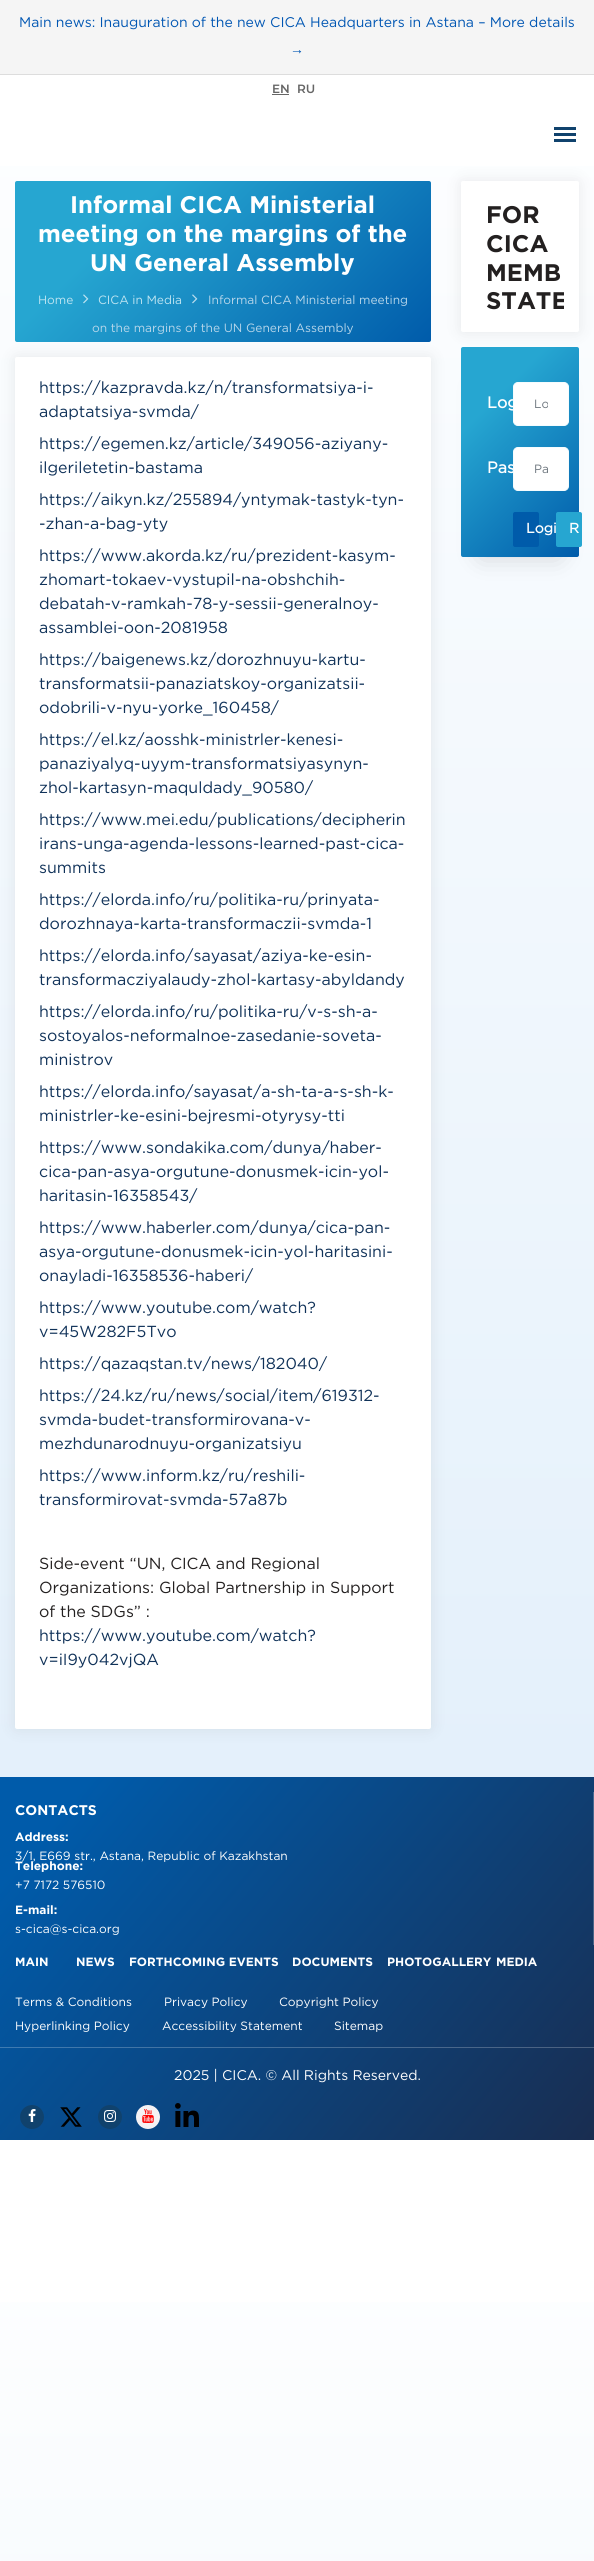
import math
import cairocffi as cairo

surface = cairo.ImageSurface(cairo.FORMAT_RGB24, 594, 2561)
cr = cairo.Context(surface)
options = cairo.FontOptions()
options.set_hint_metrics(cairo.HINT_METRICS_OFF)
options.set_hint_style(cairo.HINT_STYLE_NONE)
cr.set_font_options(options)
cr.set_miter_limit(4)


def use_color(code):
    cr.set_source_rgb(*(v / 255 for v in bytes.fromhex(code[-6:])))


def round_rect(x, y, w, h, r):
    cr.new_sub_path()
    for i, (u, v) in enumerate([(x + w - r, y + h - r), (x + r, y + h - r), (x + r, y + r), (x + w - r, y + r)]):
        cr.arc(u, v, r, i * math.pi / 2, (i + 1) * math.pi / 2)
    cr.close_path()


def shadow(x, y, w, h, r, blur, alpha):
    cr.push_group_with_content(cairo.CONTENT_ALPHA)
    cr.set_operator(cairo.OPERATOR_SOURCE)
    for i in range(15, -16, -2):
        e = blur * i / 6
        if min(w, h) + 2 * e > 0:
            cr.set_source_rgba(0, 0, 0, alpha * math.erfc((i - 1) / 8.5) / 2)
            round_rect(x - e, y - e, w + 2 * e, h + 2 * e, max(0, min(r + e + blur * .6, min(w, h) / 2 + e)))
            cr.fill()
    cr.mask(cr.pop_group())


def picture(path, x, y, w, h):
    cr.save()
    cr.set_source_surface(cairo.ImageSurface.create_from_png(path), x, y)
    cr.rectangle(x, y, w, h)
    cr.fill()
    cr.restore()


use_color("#ffffff")
cr.paint()
gradient = cairo.LinearGradient(297, 0, 297, 2140)
gradient.add_color_stop_rgba(0, 1, 1, 1, 1)
gradient.add_color_stop_rgba(1, 0.871, 0.929, 0.98, 1)
cr.set_source(gradient)
cr.rectangle(0, 162, 594, 1615)
cr.fill()
gradient = cairo.LinearGradient(297, 2140, 297, 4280)
gradient.add_color_stop_rgba(0, 1, 1, 1, 1)
gradient.add_color_stop_rgba(1, 0.871, 0.929, 0.98, 1)
cr.set_source(gradient)
cr.rectangle(0, 2302, 594, 259)
cr.fill()
use_color("#f5f5f5")
cr.rectangle(0, 0, 594, 74)
cr.fill()
use_color("#dddddd")
cr.rectangle(0, 74, 594, 1)
cr.fill()
cr.select_font_face("Gotham")
cr.set_font_size(14)
use_color("#0056b3")
cr.move_to(19, 27)
cr.show_text("Main news: Inauguration of the new CICA Headquarters in Astana – More details")
cr.select_font_face("Liberation Sans")
cr.move_to(290, 54)
cr.show_text("→")
cr.select_font_face("Montserrat SemiBold")
cr.set_font_size(12)
use_color("#666666")
cr.move_to(272, 93)
cr.show_text("EN")
cr.rectangle(272, 94, 17, 1)
cr.fill()
cr.move_to(297, 93)
cr.show_text("RU")
use_color("#ffffff")
cr.rectangle(0, 162, 594, 4)
cr.fill()
use_color("#10426d")
cr.rectangle(554, 127, 22, 3)
cr.fill()
cr.rectangle(554, 133, 22, 3)
cr.fill()
cr.rectangle(554, 139, 22, 3)
cr.fill()
use_color("#333333")
shadow(15, 357, 416, 1372, 2, 7.5, 0.1)
gradient = cairo.LinearGradient(367, 406, 79, 117)
gradient.add_color_stop_rgba(0, 0, 0.357, 0.667, 1)
gradient.add_color_stop_rgba(0.74, 0.149, 0.651, 0.82, 1)
cr.set_source(gradient)
round_rect(15, 181, 416, 161, 2)
cr.fill()
cr.select_font_face("Gotham", cairo.FONT_SLANT_NORMAL, cairo.FONT_WEIGHT_BOLD)
cr.set_font_size(24)
use_color("#ffffff")
cr.move_to(70, 213)
cr.show_text("Informal CICA Ministerial")
cr.move_to(38, 242)
cr.show_text("meeting on the margins of the")
cr.move_to(90, 271)
cr.show_text("UN General Assembly")
cr.select_font_face("Gotham")
cr.set_font_size(12)
use_color("#bee4f1")
cr.move_to(38, 304)
cr.show_text("Home")
picture("img1.png", 83, 294, 6, 10)
cr.move_to(98, 304)
cr.show_text("CICA in Media")
picture("img2.png", 192, 294, 6, 10)
use_color("#b7d6ea")
cr.move_to(208, 304)
cr.show_text("Informal CICA Ministerial meeting")
cr.move_to(92, 332)
cr.show_text("on the margins of the UN General Assembly")
use_color("#ffffff")
round_rect(15, 357, 416, 1372, 2)
cr.fill()
cr.set_font_size(16)
use_color("#103259")
cr.move_to(39, 393)
cr.show_text("https://kazpravda.kz/n/transformatsiya-i-")
cr.move_to(39, 417)
cr.show_text("adaptatsiya-svmda/")
cr.move_to(39, 449)
cr.show_text("https://egemen.kz/article/349056-aziyany-")
cr.move_to(39, 473)
cr.show_text("ilgeriletetin-bastama")
cr.move_to(39, 505)
cr.show_text("https://aikyn.kz/255894/yntymak-tastyk-tyn-")
cr.move_to(39, 529)
cr.show_text("-zhan-a-bag-yty")
cr.move_to(39, 561)
cr.show_text("https://www.akorda.kz/ru/prezident-kasym-")
cr.move_to(39, 585)
cr.show_text("zhomart-tokaev-vystupil-na-obshchih-")
cr.move_to(39, 609)
cr.show_text("debatah-v-ramkah-78-y-sessii-generalnoy-")
cr.move_to(39, 633)
cr.show_text("assamblei-oon-2081958")
cr.move_to(39, 665)
cr.show_text("https://baigenews.kz/dorozhnuyu-kartu-")
cr.move_to(39, 689)
cr.show_text("transformatsii-panaziatskoy-organizatsii-")
cr.move_to(39, 713)
cr.show_text("odobrili-v-nyu-yorke_160458/")
cr.move_to(39, 745)
cr.show_text("https://el.kz/aosshk-ministrler-kenesi-")
cr.move_to(39, 769)
cr.show_text("panaziyalyq-uyym-transformatsiyasynyn-")
cr.move_to(39, 793)
cr.show_text("zhol-kartasyn-maquldady_90580/")
cr.move_to(39, 825)
cr.show_text("https://www.mei.edu/publications/decipherin")
cr.move_to(39, 849)
cr.show_text("irans-unga-agenda-lessons-learned-past-cica-")
cr.move_to(39, 873)
cr.show_text("summits")
cr.move_to(39, 905)
cr.show_text("https://elorda.info/ru/politika-ru/prinyata-")
cr.move_to(39, 929)
cr.show_text("dorozhnaya-karta-transformaczii-svmda-1")
cr.move_to(39, 961)
cr.show_text("https://elorda.info/sayasat/aziya-ke-esin-")
cr.move_to(39, 985)
cr.show_text("transformacziyalaudy-zhol-kartasy-abyldandy")
cr.move_to(39, 1017)
cr.show_text("https://elorda.info/ru/politika-ru/v-s-sh-a-")
cr.move_to(39, 1041)
cr.show_text("sostoyalos-neformalnoe-zasedanie-soveta-")
cr.move_to(39, 1065)
cr.show_text("ministrov")
cr.move_to(39, 1097)
cr.show_text("https://elorda.info/sayasat/a-sh-ta-a-s-sh-k-")
cr.move_to(39, 1121)
cr.show_text("ministrler-ke-esini-bejresmi-otyrysy-tti")
cr.move_to(39, 1153)
cr.show_text("https://www.sondakika.com/dunya/haber-")
cr.move_to(39, 1177)
cr.show_text("cica-pan-asya-orgutune-donusmek-icin-yol-")
cr.move_to(39, 1201)
cr.show_text("haritasin-16358543/")
cr.move_to(39, 1233)
cr.show_text("https://www.haberler.com/dunya/cica-pan-")
cr.move_to(39, 1257)
cr.show_text("asya-orgutune-donusmek-icin-yol-haritasini-")
cr.move_to(39, 1281)
cr.show_text("onayladi-16358536-haberi/")
cr.move_to(39, 1313)
cr.show_text("https://www.youtube.com/watch?")
cr.move_to(39, 1337)
cr.show_text("v=45W282F5Tvo")
cr.move_to(39, 1369)
cr.show_text("https://qazaqstan.tv/news/182040/")
cr.move_to(39, 1401)
cr.show_text("https://24.kz/ru/news/social/item/619312-")
cr.move_to(39, 1425)
cr.show_text("svmda-budet-transformirovana-v-")
cr.move_to(39, 1449)
cr.show_text("mezhdunarodnuyu-organizatsiyu")
cr.move_to(39, 1481)
cr.show_text("https://www.inform.kz/ru/reshili-")
cr.move_to(39, 1505)
cr.show_text("transformirovat-svmda-57a87b")
use_color("#232020")
cr.move_to(39, 1569)
cr.show_text("Side-event “UN, CICA and Regional")
cr.move_to(39, 1593)
cr.show_text("Organizations: Global Partnership in Support")
cr.move_to(39, 1617)
cr.show_text("of the SDGs” :")
use_color("#103259")
cr.move_to(39, 1641)
cr.show_text("https://www.youtube.com/watch?")
cr.move_to(39, 1665)
cr.show_text("v=iI9y042vjQA")
use_color("#333333")
shadow(461, 181, 118, 151, 2, 7.5, 0.1)
use_color("#ffffff")
round_rect(461, 181, 118, 151, 2)
cr.fill()
cr.select_font_face("Gotham", cairo.FONT_SLANT_NORMAL, cairo.FONT_WEIGHT_BOLD)
cr.set_font_size(24)
use_color("#232020")
cr.move_to(486, 223)
cr.show_text("FOR")
cr.move_to(486, 252)
cr.show_text("CICA")
cr.move_to(486, 281)
cr.show_text("MEMB")
cr.save()
cr.rectangle(486, 191, 78, 126)
cr.clip()
cr.move_to(486, 309)
cr.show_text("STATE")
cr.restore()
use_color("#000000")
shadow(481, 386, 78, 170, 0, 13.5, 0.16)
gradient = cairo.LinearGradient(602, 534, 438, 370)
gradient.add_color_stop_rgba(0, 0, 0.357, 0.667, 1)
gradient.add_color_stop_rgba(0.74, 0.149, 0.651, 0.82, 1)
cr.set_source(gradient)
round_rect(461, 347, 118, 210, 2)
cr.fill()
cr.select_font_face("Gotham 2", cairo.FONT_SLANT_NORMAL, cairo.FONT_WEIGHT_BOLD)
cr.set_font_size(16)
use_color("#ffffff")
cr.move_to(487, 408)
cr.show_text("Log")
round_rect(513.5, 382.5, 55, 43, 4.5)
cr.fill_preserve()
use_color("#f5fcfe")
cr.set_line_width(1)
cr.stroke()
cr.save()
cr.rectangle(534, 399, 14, 12)
cr.clip()
cr.select_font_face("Gotham")
cr.set_font_size(12)
use_color("#6c757d")
cr.move_to(534, 408)
cr.show_text("Lo")
cr.restore()
use_color("#ffffff")
cr.move_to(487, 473)
cr.show_text("Pas")
round_rect(513.5, 447.5, 55, 43, 4.5)
cr.fill_preserve()
use_color("#f5fcfe")
cr.stroke()
cr.save()
cr.rectangle(534, 464, 14, 12)
cr.clip()
cr.select_font_face("Gotham")
cr.set_font_size(12)
use_color("#6c757d")
cr.move_to(534, 473)
cr.show_text("Pa")
cr.restore()
use_color("#005baa")
round_rect(513, 512, 26, 35, 2)
cr.fill()
cr.set_font_size(14)
use_color("#ffffff")
cr.move_to(526, 533)
cr.show_text("Logi")
use_color("#26a6d1")
round_rect(556, 512, 26, 35, 2)
cr.fill()
use_color("#ffffff")
cr.move_to(569, 533)
cr.show_text("R")
gradient = cairo.LinearGradient(561, 2180, 33, 1737)
gradient.add_color_stop_rgba(0, 0.098, 0.176, 0.314, 1)
gradient.add_color_stop_rgba(0.9, 0, 0.357, 0.667, 1)
cr.set_source(gradient)
cr.rectangle(0, 1777, 594, 363)
cr.fill()
gradient = cairo.LinearGradient(561, 2180, 33, 1737)
gradient.add_color_stop_rgba(0, 0.306, 0.365, 0.471, 1)
gradient.add_color_stop_rgba(0.9, 0.231, 0.506, 0.745, 1)
cr.set_source(gradient)
cr.rectangle(593, 1792, 1, 153)
cr.fill()
cr.rectangle(0, 2047, 594, 1)
cr.fill()
cr.select_font_face("Gotham", cairo.FONT_SLANT_NORMAL, cairo.FONT_WEIGHT_BOLD)
use_color("#ffffff")
cr.move_to(15, 1815)
cr.show_text("CONTACTS")
cr.set_font_size(12)
cr.move_to(15, 1841)
cr.show_text("Address:")
cr.select_font_face("Gotham")
cr.move_to(15, 1860)
cr.show_text("3/1, E669 str., Astana, Republic of Kazakhstan")
cr.select_font_face("Gotham", cairo.FONT_SLANT_NORMAL, cairo.FONT_WEIGHT_BOLD)
cr.move_to(15, 1870)
cr.show_text("Telephone:")
cr.select_font_face("Gotham")
cr.move_to(15, 1889)
cr.show_text("+7 7172 576510")
cr.select_font_face("Gotham", cairo.FONT_SLANT_NORMAL, cairo.FONT_WEIGHT_BOLD)
cr.move_to(15, 1914)
cr.show_text("E-mail:")
cr.select_font_face("Gotham")
cr.move_to(15, 1933)
cr.show_text("s-cica@s-cica.org")
cr.select_font_face("Gotham", cairo.FONT_SLANT_NORMAL, cairo.FONT_WEIGHT_BOLD)
cr.move_to(15, 1966)
cr.show_text("MAIN")
cr.move_to(76, 1966)
cr.show_text("NEWS")
cr.move_to(129, 1966)
cr.show_text("FORTHCOMING EVENTS")
cr.move_to(292, 1966)
cr.show_text("DOCUMENTS")
cr.move_to(387, 1966)
cr.show_text("PHOTOGALLERY")
cr.move_to(496, 1966)
cr.show_text("MEDIA")
cr.select_font_face("Gotham")
cr.move_to(15, 2006)
cr.show_text("Terms & Conditions")
cr.move_to(164, 2006)
cr.show_text("Privacy Policy")
cr.move_to(279, 2006)
cr.show_text("Copyright Policy")
cr.move_to(15, 2030)
cr.show_text("Hyperlinking Policy")
cr.move_to(162, 2030)
cr.show_text("Accessibility Statement")
cr.move_to(334, 2030)
cr.show_text("Sitemap")
cr.set_font_size(14)
cr.move_to(174, 2080)
cr.show_text("2025 | CICA. © All Rights Reserved.")
use_color("#10426d")
cr.new_path()
cr.arc(32, 2117, 12, 0, 2 * math.pi)
cr.fill()
picture("img3.png", 28, 2109, 8, 13)
picture("img4.png", 60, 2107, 22, 20)
cr.arc(110, 2117, 12, 0, 2 * math.pi)
cr.fill()
picture("img5.png", 104, 2110, 12, 12)
use_color("#f5f2f4")
cr.arc(148, 2117, 12, 0, 2 * math.pi)
cr.fill()
picture("img6.png", 142, 2109, 12, 14)
picture("img7.png", 175, 2103, 24, 24)
surface.write_to_png("result.png")
